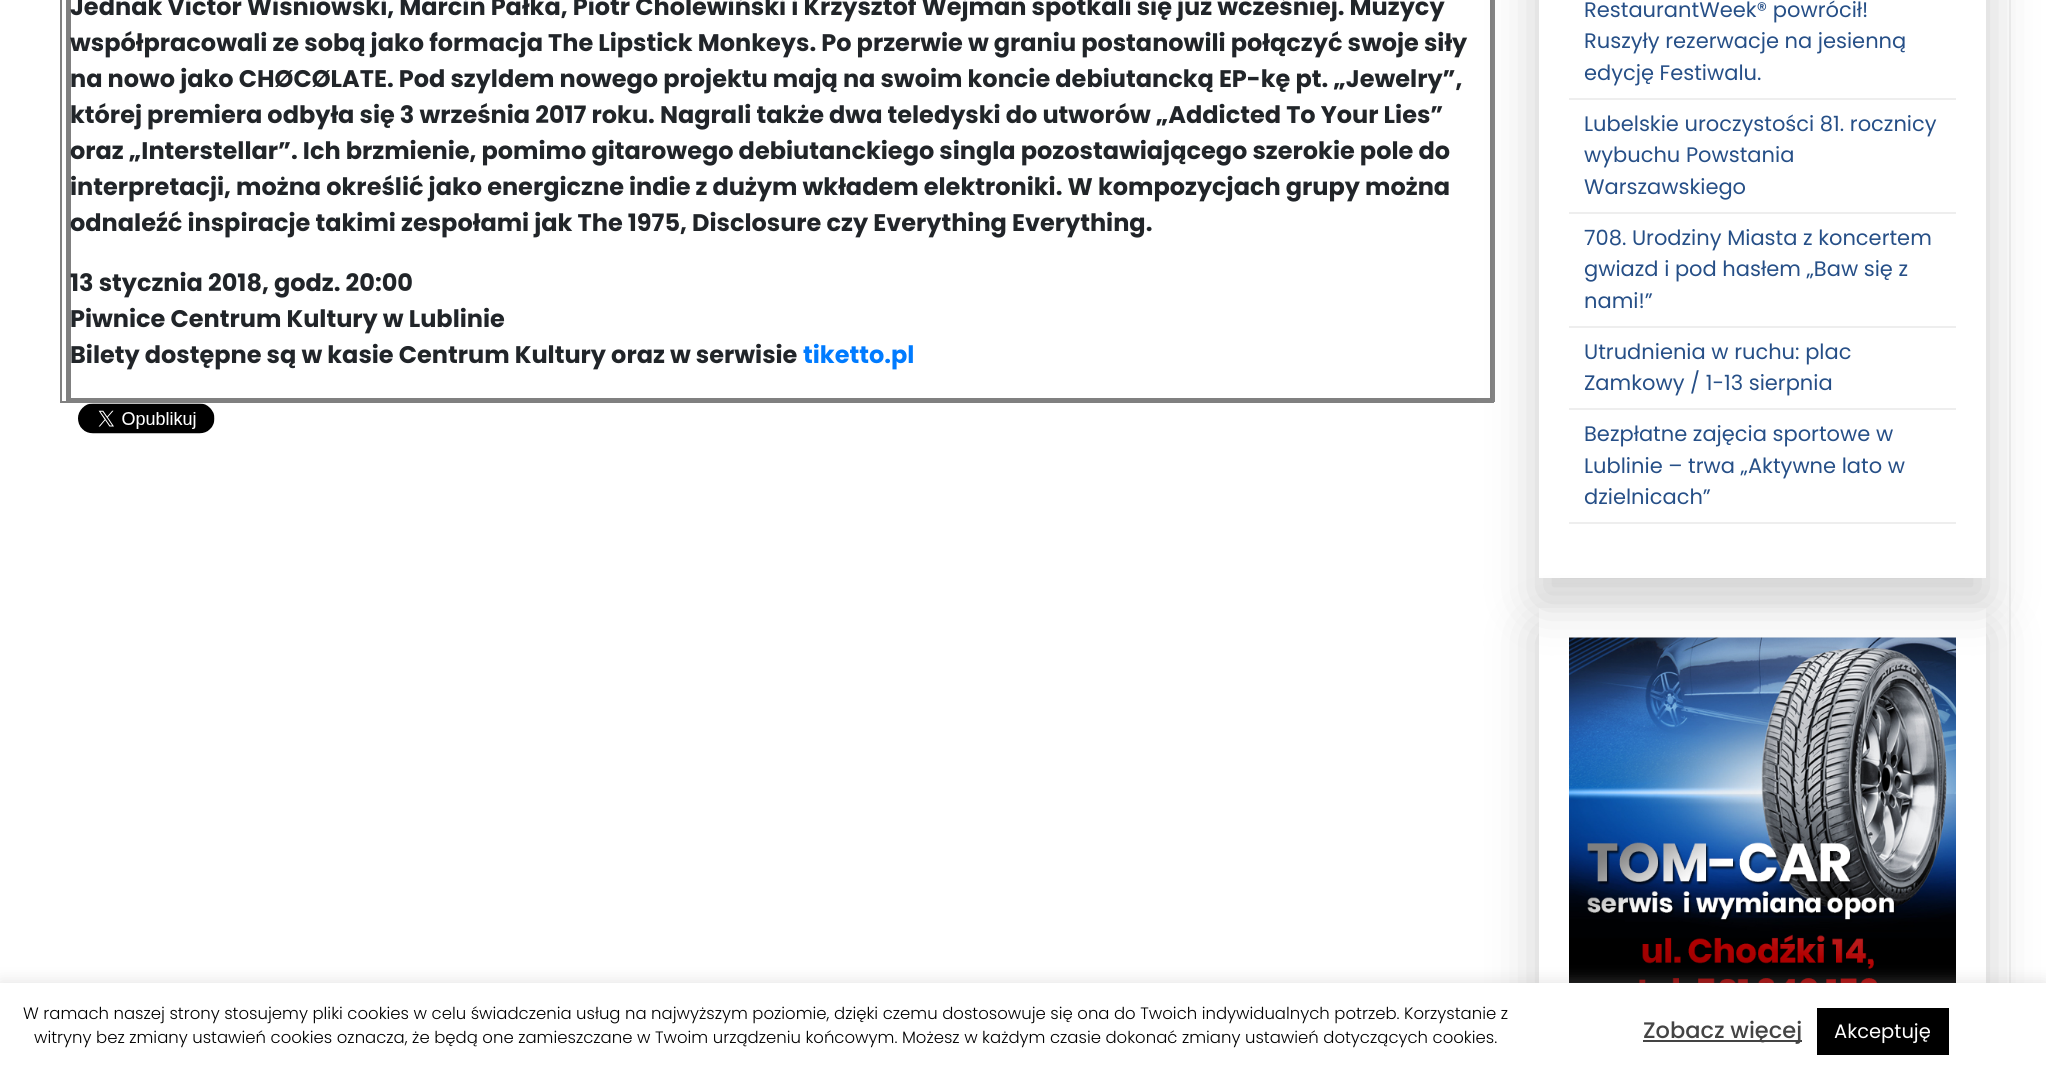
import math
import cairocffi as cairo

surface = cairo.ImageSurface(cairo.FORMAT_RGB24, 2046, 1072)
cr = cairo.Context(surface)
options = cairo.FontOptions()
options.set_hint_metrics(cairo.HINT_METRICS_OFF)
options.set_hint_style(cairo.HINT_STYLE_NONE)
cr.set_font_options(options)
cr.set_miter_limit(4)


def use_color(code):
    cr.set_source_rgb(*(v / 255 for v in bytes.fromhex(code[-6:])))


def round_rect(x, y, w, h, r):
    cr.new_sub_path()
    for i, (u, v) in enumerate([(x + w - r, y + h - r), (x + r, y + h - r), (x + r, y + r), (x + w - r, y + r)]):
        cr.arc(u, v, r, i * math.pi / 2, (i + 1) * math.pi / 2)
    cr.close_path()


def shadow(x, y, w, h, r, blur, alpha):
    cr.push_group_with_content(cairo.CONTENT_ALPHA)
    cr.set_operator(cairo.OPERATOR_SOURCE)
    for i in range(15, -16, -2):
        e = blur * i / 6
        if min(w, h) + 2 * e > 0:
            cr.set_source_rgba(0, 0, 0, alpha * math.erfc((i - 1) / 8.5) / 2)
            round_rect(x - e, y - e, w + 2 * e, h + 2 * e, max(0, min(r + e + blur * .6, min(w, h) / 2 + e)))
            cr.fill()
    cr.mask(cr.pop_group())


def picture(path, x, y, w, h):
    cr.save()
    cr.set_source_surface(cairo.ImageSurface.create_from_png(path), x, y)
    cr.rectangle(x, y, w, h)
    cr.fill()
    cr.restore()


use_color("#ffffff")
cr.paint()
use_color("#808080")
cr.rectangle(1493, 0, 2, 402)
cr.fill()
cr.rectangle(60, 401, 1434, 2)
cr.fill()
cr.rectangle(60, 0, 2, 402)
cr.fill()
cr.rectangle(66, 0, 2, 402)
cr.fill()
cr.rectangle(1491, 0, 2, 401)
cr.fill()
cr.rectangle(68, 399, 1425, 2)
cr.fill()
cr.rectangle(1490, 0, 1, 399)
cr.fill()
cr.rectangle(69, 398, 1422, 1)
cr.fill()
cr.rectangle(68, 0, 2, 401)
cr.fill()
cr.rectangle(70, 0, 1, 399)
cr.fill()
cr.select_font_face("Poppins", cairo.FONT_SLANT_NORMAL, cairo.FONT_WEIGHT_BOLD)
cr.set_font_size(24)
use_color("#212529")
cr.move_to(70, 15)
cr.show_text("Jednak Victor Wisniowski, Marcin Pałka, Piotr Cholewiński i Krzysztof Wejman spotkali się już wcześniej. Muzycy")
cr.move_to(70, 51)
cr.show_text("współpracowali ze sobą jako formacja The Lipstick Monkeys. Po przerwie w graniu postanowili połączyć swoje siły")
cr.move_to(70, 87)
cr.show_text("na nowo jako CHØCØLATE. Pod szyldem nowego projektu mają na swoim koncie debiutancką EP-kę pt. „Jewelry”,")
cr.move_to(70, 123)
cr.show_text("której premiera odbyła się 3 września 2017 roku. Nagrali także dwa teledyski do utworów „Addicted To Your Lies”")
cr.move_to(70, 159)
cr.show_text("oraz „Interstellar”. Ich brzmienie, pomimo gitarowego debiutanckiego singla pozostawiającego szerokie pole do")
cr.move_to(70, 195)
cr.show_text("interpretacji, można określić jako energiczne indie z dużym wkładem elektroniki. W kompozycjach grupy można")
cr.move_to(70, 231)
cr.show_text("odnaleźć inspiracje takimi zespołami jak The 1975, Disclosure czy Everything Everything.")
cr.move_to(70, 291)
cr.show_text("13 stycznia 2018, godz. 20:00")
cr.move_to(70, 327)
cr.show_text("Piwnice Centrum Kultury w Lublinie")
cr.move_to(70, 363)
cr.show_text("Bilety dostępne są w kasie Centrum Kultury oraz w serwisie")
use_color("#007bff")
cr.move_to(803, 363)
cr.show_text("tiketto.pl")
picture("img1.png", 78, 403, 137, 31)
use_color("#eeeeee")
cr.rectangle(2009, 0, 2, 983)
cr.fill()
cr.save()
cr.set_fill_rule(cairo.FILL_RULE_EVEN_ODD)
cr.new_path()
cr.move_to(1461, 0)
cr.line_to(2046, 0)
cr.line_to(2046, 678)
cr.line_to(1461, 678)
cr.close_path()
cr.move_to(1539, -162)
cr.line_to(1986, -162)
cr.line_to(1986, 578)
cr.line_to(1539, 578)
cr.close_path()
cr.clip()
use_color("#cccccc")
shadow(1539, -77, 447, 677, 0, 25.5, 1)
cr.restore()
cr.rectangle(1569, 98, 387, 2)
cr.fill()
cr.select_font_face("Poppins")
cr.set_font_size(21)
use_color("#264f87")
cr.move_to(1584, 17)
cr.show_text("RestaurantWeek® powrócił!")
cr.move_to(1584, 48)
cr.show_text("Ruszyły rezerwacje na jesienną")
cr.move_to(1584, 80)
cr.show_text("edycję Festiwalu.")
use_color("#eeeeee")
cr.rectangle(1569, 212, 387, 2)
cr.fill()
use_color("#264f87")
cr.move_to(1584, 131)
cr.show_text("Lubelskie uroczystości 81. rocznicy")
cr.move_to(1584, 162)
cr.show_text("wybuchu Powstania")
cr.move_to(1584, 194)
cr.show_text("Warszawskiego")
use_color("#eeeeee")
cr.rectangle(1569, 326, 387, 2)
cr.fill()
use_color("#264f87")
cr.move_to(1584, 245)
cr.show_text("708. Urodziny Miasta z koncertem")
cr.move_to(1584, 276)
cr.show_text("gwiazd i pod hasłem „Baw się z")
cr.move_to(1584, 308)
cr.show_text("nami!”")
use_color("#eeeeee")
cr.rectangle(1569, 408, 387, 2)
cr.fill()
use_color("#264f87")
cr.move_to(1584, 359)
cr.show_text("Utrudnienia w ruchu: plac")
cr.move_to(1584, 390)
cr.show_text("Zamkowy / 1-13 sierpnia")
use_color("#eeeeee")
cr.rectangle(1569, 522, 387, 2)
cr.fill()
use_color("#264f87")
cr.move_to(1584, 441)
cr.show_text("Bezpłatne zajęcia sportowe w")
cr.move_to(1584, 473)
cr.show_text("Lublinie – trwa „Aktywne lato w")
cr.move_to(1584, 504)
cr.show_text("dzielnicach”")
cr.save()
cr.set_fill_rule(cairo.FILL_RULE_EVEN_ODD)
cr.new_path()
cr.move_to(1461, 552)
cr.line_to(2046, 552)
cr.line_to(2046, 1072)
cr.line_to(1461, 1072)
cr.close_path()
cr.move_to(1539, 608)
cr.line_to(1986, 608)
cr.line_to(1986, 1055)
cr.line_to(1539, 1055)
cr.close_path()
cr.clip()
use_color("#cccccc")
shadow(1539, 630, 447, 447, 0, 25.5, 1)
cr.restore()
picture("img2.png", 1569, 637, 387, 346)
use_color("#acabab")
shadow(0, 981, 2046, 90, 0, 7.5, 0.3)
use_color("#ffffff")
cr.rectangle(0, 983, 2046, 89)
cr.fill()
cr.select_font_face("Poppins Light")
cr.set_font_size(16.5)
use_color("#000000")
cr.move_to(23, 1019)
cr.show_text("W ramach naszej strony stosujemy pliki cookies w celu świadczenia usług na najwyższym poziomie, dzięki czemu dostosowuje się ona do Twoich indywidualnych potrzeb. Korzystanie z")
cr.move_to(34, 1043)
cr.show_text("witryny bez zmiany ustawień cookies oznacza, że będą one zamieszczane w Twoim urządzeniu końcowym. Możesz w każdym czasie dokonać zmiany ustawień dotyczących cookies.")
use_color("#444444")
cr.rectangle(1643, 1040, 159, 2)
cr.fill()
cr.select_font_face("Poppins Medium")
cr.set_font_size(22.5)
cr.move_to(1643, 1038)
cr.show_text("Zobacz więcej")
use_color("#000000")
cr.rectangle(1817, 1008, 132, 47)
cr.fill()
cr.select_font_face("Poppins")
cr.set_font_size(19.5)
use_color("#ffffff")
cr.move_to(1834, 1038)
cr.show_text("Akceptuję")
surface.write_to_png("result.png")
